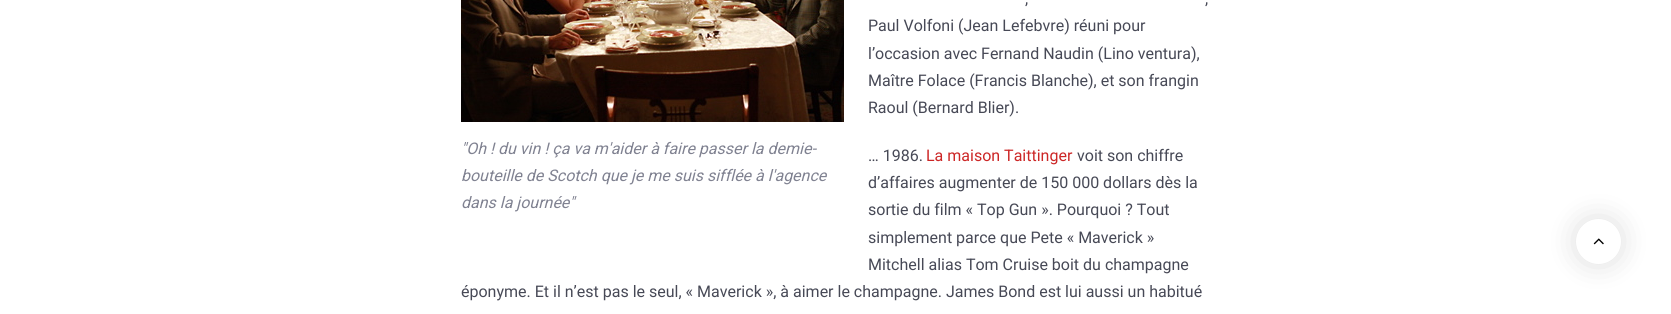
import math
import cairocffi as cairo

surface = cairo.ImageSurface(cairo.FORMAT_RGB24, 1671, 314)
cr = cairo.Context(surface)
options = cairo.FontOptions()
options.set_hint_metrics(cairo.HINT_METRICS_OFF)
options.set_hint_style(cairo.HINT_STYLE_NONE)
cr.set_font_options(options)
cr.set_miter_limit(4)


def use_color(code):
    cr.set_source_rgb(*(v / 255 for v in bytes.fromhex(code[-6:])))


def round_rect(x, y, w, h, r):
    cr.new_sub_path()
    for i, (u, v) in enumerate([(x + w - r, y + h - r), (x + r, y + h - r), (x + r, y + r), (x + w - r, y + r)]):
        cr.arc(u, v, r, i * math.pi / 2, (i + 1) * math.pi / 2)
    cr.close_path()


def shadow(x, y, w, h, r, blur, alpha):
    cr.push_group_with_content(cairo.CONTENT_ALPHA)
    cr.set_operator(cairo.OPERATOR_SOURCE)
    for i in range(15, -16, -2):
        e = blur * i / 6
        if min(w, h) + 2 * e > 0:
            cr.set_source_rgba(0, 0, 0, alpha * math.erfc((i - 1) / 8.5) / 2)
            round_rect(x - e, y - e, w + 2 * e, h + 2 * e, max(0, min(r + e + blur * .6, min(w, h) / 2 + e)))
            cr.fill()
    cr.mask(cr.pop_group())


def picture(path, x, y, w, h):
    cr.save()
    cr.set_source_surface(cairo.ImageSurface.create_from_png(path), x, y)
    cr.rectangle(x, y, w, h)
    cr.fill()
    cr.restore()


use_color("#ffffff")
cr.paint()
cr.select_font_face("Roboto")
cr.set_font_size(16)
use_color("#474956")
cr.move_to(1025, 4)
cr.show_text(",")
cr.move_to(1205, 4)
cr.show_text(",")
cr.move_to(868, 31)
cr.show_text("Paul Volfoni (Jean Lefebvre) réuni pour")
cr.move_to(868, 59)
cr.show_text("l’occasion avec Fernand Naudin (Lino ventura),")
cr.move_to(868, 86)
cr.show_text("Maître Folace (Francis Blanche), et son frangin")
cr.move_to(868, 113)
cr.show_text("Raoul (Bernard Blier).")
picture("img1.png", 461, 0, 383, 122)
cr.select_font_face("Roboto", cairo.FONT_SLANT_ITALIC)
use_color("#808291")
cr.move_to(461, 154)
cr.show_text("\"Oh ! du vin ! ça va m'aider à faire passer la demie-")
cr.move_to(461, 181)
cr.show_text("bouteille de Scotch que je me suis sifflée à l'agence")
cr.move_to(461, 208)
cr.show_text("dans la journée\"")
cr.select_font_face("Roboto")
use_color("#474956")
cr.move_to(868, 161)
cr.show_text("… 1986.")
use_color("#cc2626")
cr.move_to(926, 161)
cr.show_text("La maison Taittinger")
use_color("#474956")
cr.move_to(1077, 161)
cr.show_text("voit son chiffre")
cr.move_to(868, 188)
cr.show_text("d’affaires augmenter de 150 000 dollars dès la")
cr.move_to(868, 215)
cr.show_text("sortie du film « Top Gun ». Pourquoi ? Tout")
cr.move_to(868, 243)
cr.show_text("simplement parce que Pete « Maverick »")
cr.move_to(868, 270)
cr.show_text("Mitchell alias Tom Cruise boit du champagne")
cr.move_to(461, 297)
cr.show_text("éponyme. Et il n’est pas le seul, « Maverick », à aimer le champagne. James Bond est lui aussi un habitué")
use_color("#000000")
shadow(1578, 221, 41, 41, 20.5, 15, 0.15)
use_color("#ffffff")
cr.arc(1598.5, 241.5, 22.5, 0, 2 * math.pi)
cr.fill()
picture("img2.png", 1593, 238, 11, 7)
surface.write_to_png("result.png")
